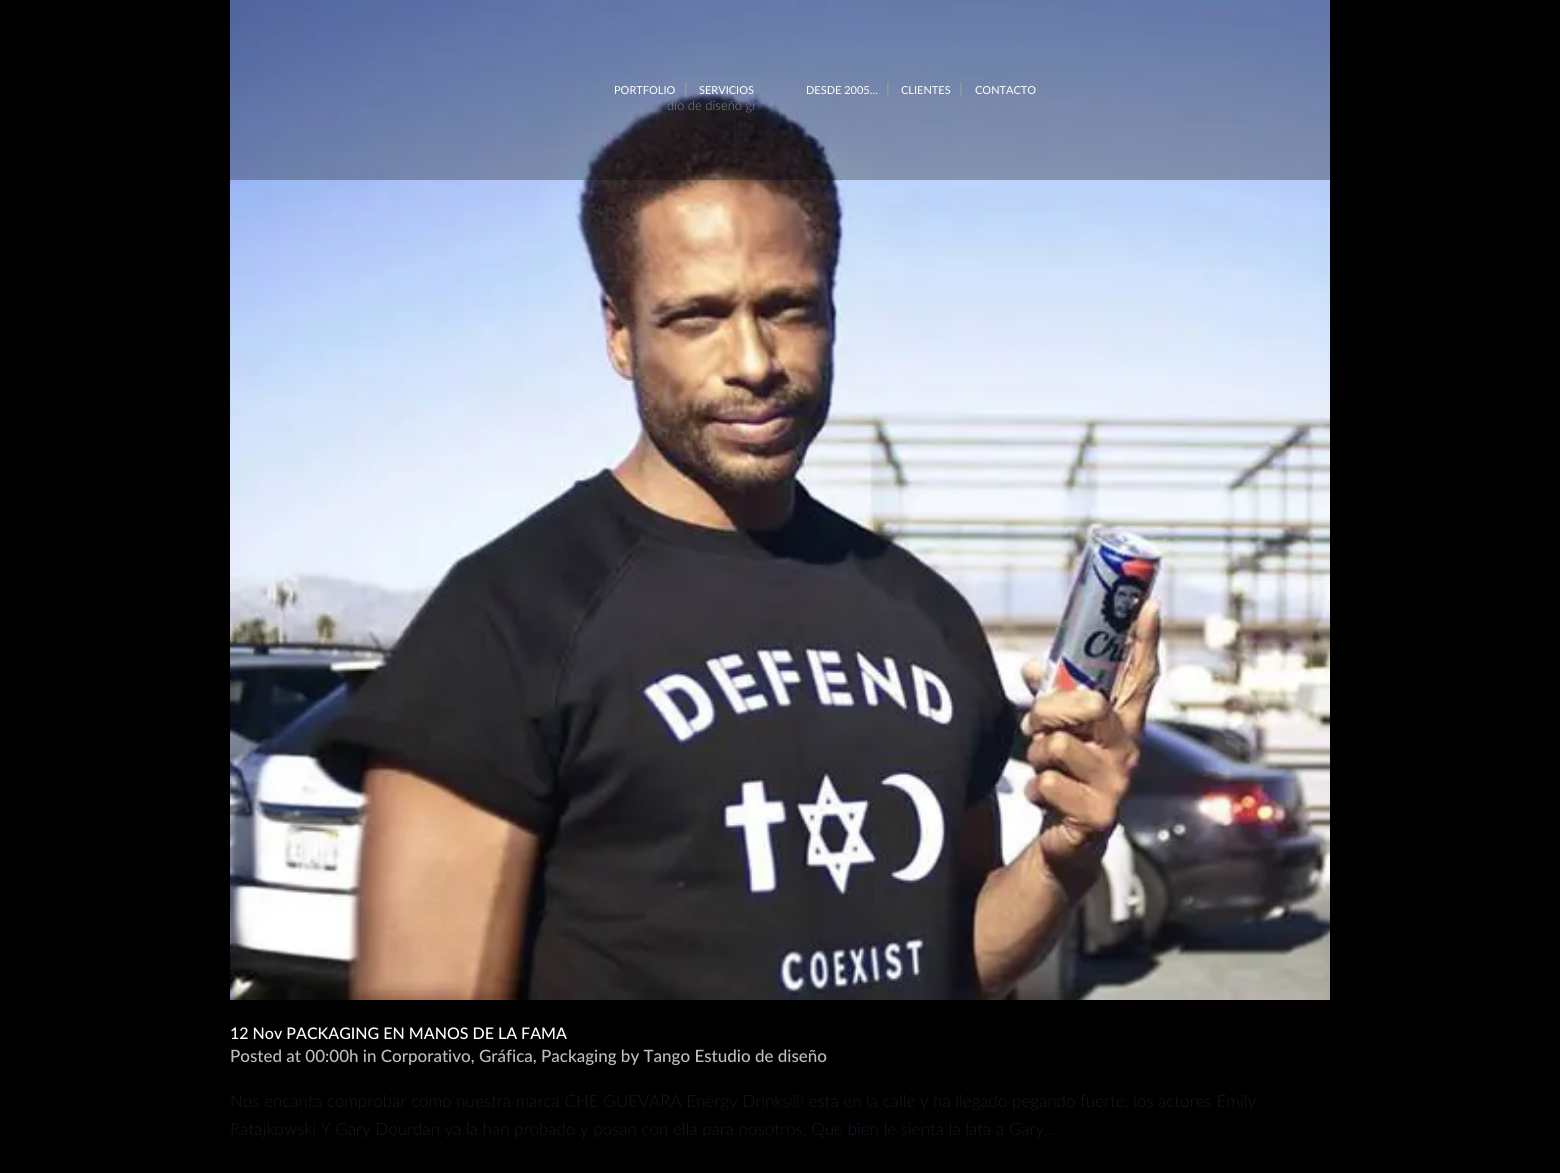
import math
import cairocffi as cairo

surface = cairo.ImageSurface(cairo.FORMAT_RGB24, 1560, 1173)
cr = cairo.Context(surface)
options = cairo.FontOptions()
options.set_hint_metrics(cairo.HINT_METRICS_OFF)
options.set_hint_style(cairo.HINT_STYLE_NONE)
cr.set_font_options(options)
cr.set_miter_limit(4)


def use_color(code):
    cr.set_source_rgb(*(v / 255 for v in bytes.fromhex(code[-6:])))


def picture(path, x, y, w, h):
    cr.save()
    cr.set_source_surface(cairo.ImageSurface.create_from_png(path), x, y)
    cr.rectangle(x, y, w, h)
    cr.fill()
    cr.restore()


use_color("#000000")
cr.paint()
picture("img1.png", 230, 0, 1100, 1000)
cr.set_source_rgba(0, 0, 0, 0.3)
cr.rectangle(230, 0, 1100, 180)
cr.fill()
cr.select_font_face("Lato")
cr.set_font_size(11)
use_color("#ffffff")
cr.move_to(614, 94)
cr.show_text("PORTFOLIO")
cr.set_font_size(15)
use_color("#9e9e9e")
cr.move_to(684, 94)
cr.show_text("|")
cr.set_font_size(11)
use_color("#ffffff")
cr.move_to(699, 94)
cr.show_text("SERVICIOS")
cr.move_to(806, 94)
cr.show_text("DESDE 2005…")
cr.set_font_size(15)
use_color("#9e9e9e")
cr.move_to(886, 94)
cr.show_text("|")
cr.set_font_size(11)
use_color("#ffffff")
cr.move_to(901, 94)
cr.show_text("CLIENTES")
cr.set_font_size(15)
use_color("#9e9e9e")
cr.move_to(959, 94)
cr.show_text("|")
cr.set_font_size(11)
use_color("#ffffff")
cr.move_to(975, 94)
cr.show_text("CONTACTO")
cr.select_font_face("Lato Light")
cr.set_font_size(13)
use_color("#888888")
cr.move_to(667, 110)
cr.show_text("dio de diseño gr")
cr.select_font_face("Lato Medium")
cr.set_font_size(16)
use_color("#ffffff")
cr.move_to(230, 1039)
cr.show_text("12 Nov PACKAGING EN MANOS DE LA FAMA")
cr.set_font_size(17)
use_color("#bebebe")
cr.move_to(230, 1062)
cr.show_text("Posted at 00:00h in Corporativo, Gráfica, Packaging by Tango Estudio de diseño")
cr.select_font_face("Lato Light")
use_color("#141823")
cr.move_to(230, 1107)
cr.show_text("Nos encanta comprobar como nuestra marca CHE GUEVARA Energy Drinks® está en la calle y ha llegado pegando fuerte, los actores Emily")
cr.move_to(230, 1135)
cr.show_text("Ratajkowski Y Gary Dourdan ya la han probado y posan con ella para nosotros. Que bien le sienta la lata a Gary…")
surface.write_to_png("result.png")
